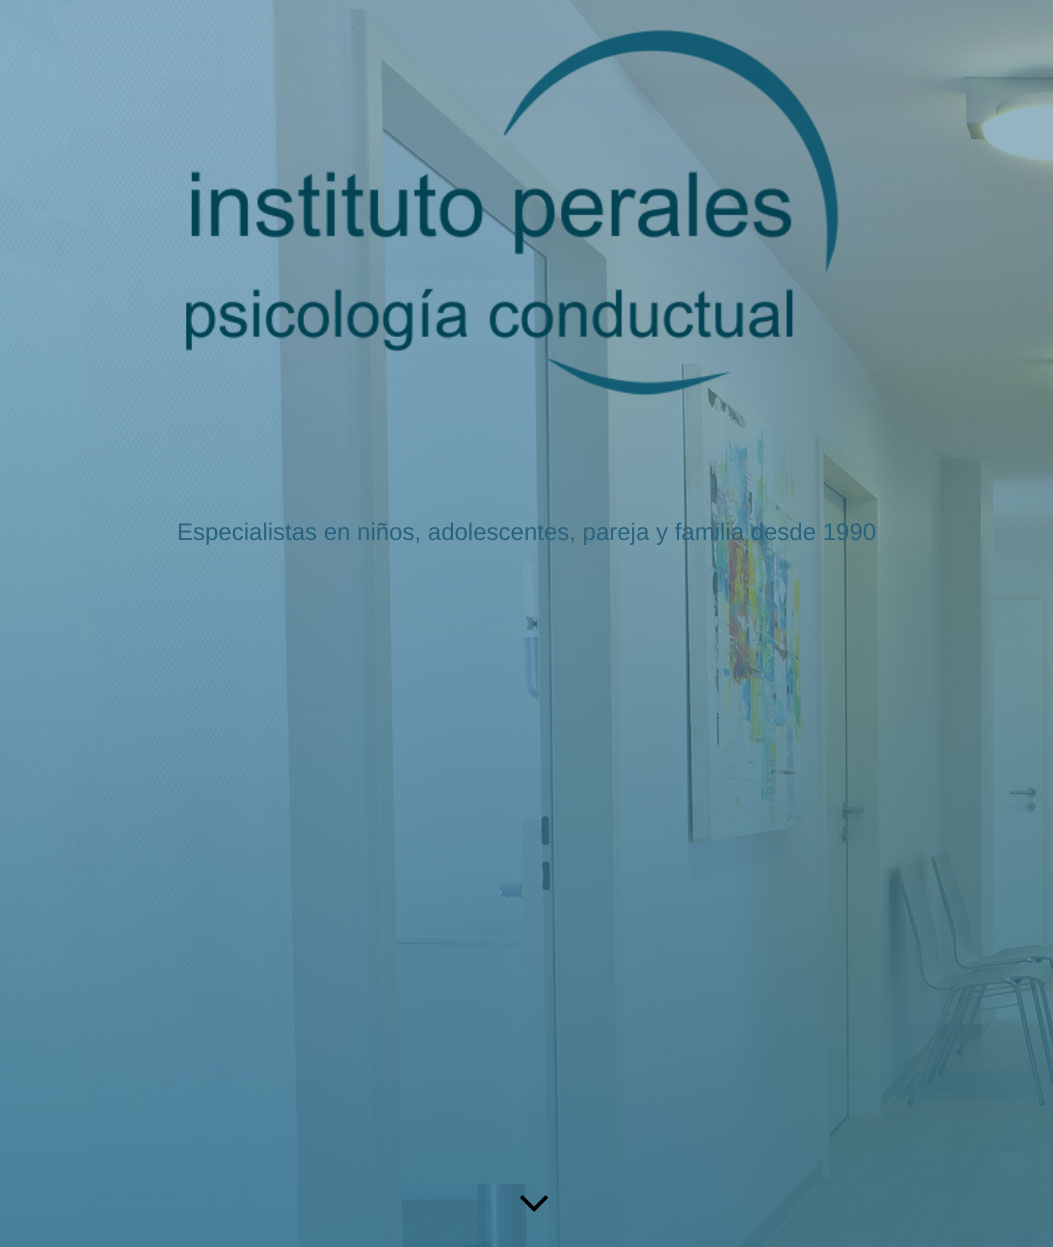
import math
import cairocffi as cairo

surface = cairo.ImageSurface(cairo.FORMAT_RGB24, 1053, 1247)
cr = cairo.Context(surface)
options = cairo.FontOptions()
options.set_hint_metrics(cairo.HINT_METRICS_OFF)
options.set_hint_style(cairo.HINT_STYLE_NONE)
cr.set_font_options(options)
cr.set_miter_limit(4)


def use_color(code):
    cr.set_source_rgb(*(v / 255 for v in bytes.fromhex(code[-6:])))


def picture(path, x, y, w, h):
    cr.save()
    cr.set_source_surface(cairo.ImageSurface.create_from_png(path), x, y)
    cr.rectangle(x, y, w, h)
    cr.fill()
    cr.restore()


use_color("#ffffff")
cr.paint()
picture("img1.png", 0, 0, 1053, 1247)
picture("img2.png", 186, 30, 653, 366)
cr.select_font_face("Liberation Sans")
cr.set_font_size(24)
use_color("#286480")
cr.move_to(177, 540)
cr.show_text("Especialistas en niños, adolescentes, pareja y familia desde 1990")
picture("img3.png", 520, 1195, 28, 17)
surface.write_to_png("result.png")
